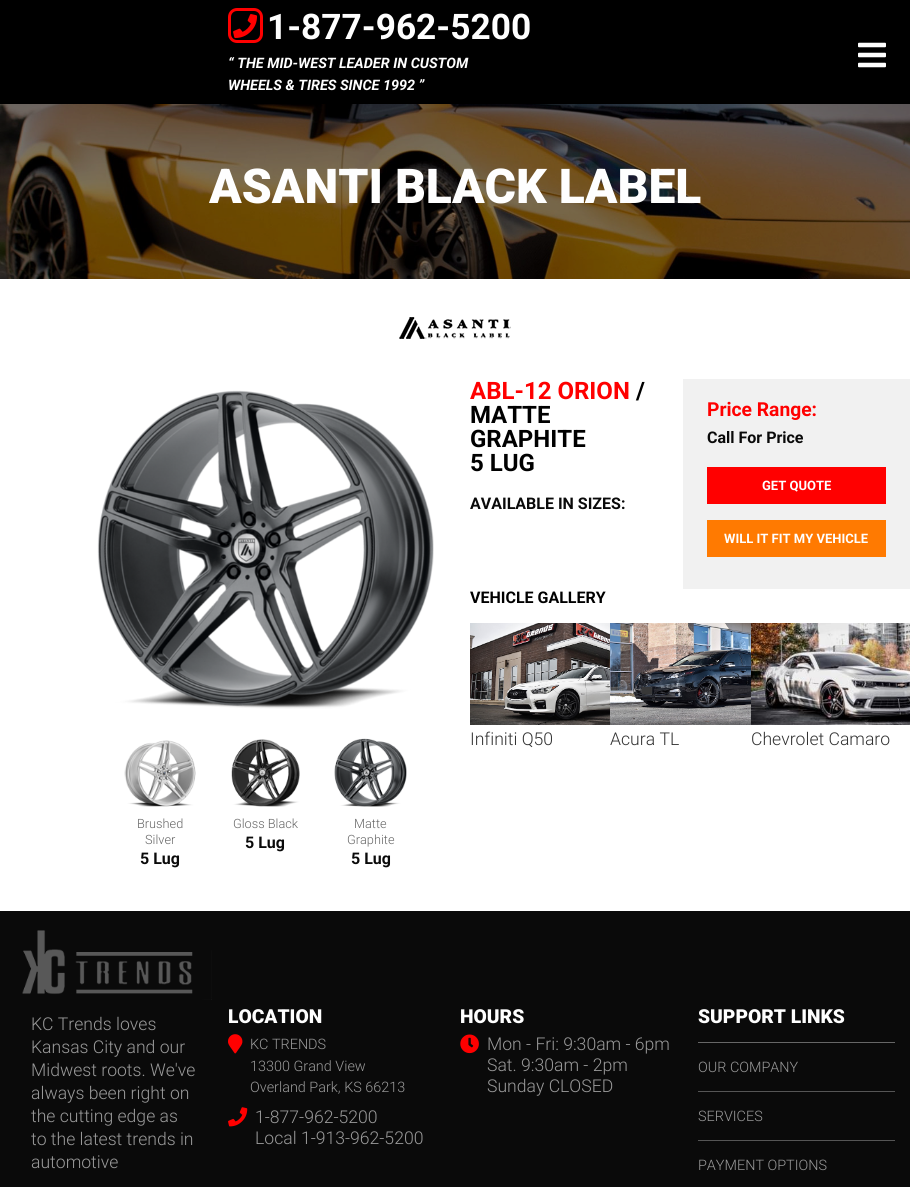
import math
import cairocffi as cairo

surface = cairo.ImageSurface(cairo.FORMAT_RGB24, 910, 1187)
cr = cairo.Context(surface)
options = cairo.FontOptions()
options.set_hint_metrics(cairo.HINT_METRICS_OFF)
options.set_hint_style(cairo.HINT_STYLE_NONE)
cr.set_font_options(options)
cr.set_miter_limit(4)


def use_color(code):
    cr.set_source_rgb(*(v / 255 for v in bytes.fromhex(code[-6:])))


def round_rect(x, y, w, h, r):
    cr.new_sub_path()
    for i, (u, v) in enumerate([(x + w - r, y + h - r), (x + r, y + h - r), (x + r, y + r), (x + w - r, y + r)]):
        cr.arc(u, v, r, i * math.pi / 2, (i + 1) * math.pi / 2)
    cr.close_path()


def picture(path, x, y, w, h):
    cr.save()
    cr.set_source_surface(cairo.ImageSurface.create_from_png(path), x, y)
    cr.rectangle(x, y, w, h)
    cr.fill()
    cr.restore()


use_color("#ffffff")
cr.paint()
use_color("#000000")
cr.rectangle(0, 0, 910, 104)
cr.fill()
round_rect(229.5, 9.5, 32, 32, 7.5)
use_color("#ff0000")
cr.set_line_width(3)
cr.stroke()
picture("img1.png", 233, 14, 25, 24)
cr.select_font_face("Roboto", cairo.FONT_SLANT_NORMAL, cairo.FONT_WEIGHT_BOLD)
cr.set_font_size(35.25)
use_color("#fefefe")
cr.move_to(267, 39)
cr.show_text("1-877-962-5200")
cr.select_font_face("Roboto", cairo.FONT_SLANT_ITALIC, cairo.FONT_WEIGHT_BOLD)
cr.set_font_size(14.4)
cr.move_to(228, 68)
cr.show_text("“ THE MID-WEST LEADER IN CUSTOM")
cr.move_to(228, 90)
cr.show_text("WHEELS & TIRES SINCE 1992 ”")
picture("img2.png", 858, 42, 28, 26)
picture("img3.png", 0, 104, 910, 175)
cr.select_font_face("Roboto Black")
cr.set_font_size(48)
cr.move_to(209, 203)
cr.show_text("ASANTI BLACK LABEL")
picture("img4.png", 399, 317, 112, 22)
cr.select_font_face("Roboto", cairo.FONT_SLANT_NORMAL, cairo.FONT_WEIGHT_BOLD)
cr.set_font_size(24)
use_color("#ff0000")
cr.move_to(470, 399)
cr.show_text("ABL-12 ORION")
use_color("#000000")
cr.move_to(636, 399)
cr.show_text("/")
cr.move_to(470, 423)
cr.show_text("MATTE")
cr.move_to(470, 447)
cr.show_text("GRAPHITE")
cr.move_to(470, 471)
cr.show_text("5 LUG")
cr.set_font_size(16)
use_color("#0a0a0a")
cr.move_to(470, 509)
cr.show_text("AVAILABLE IN SIZES:")
use_color("#f1f1f1")
cr.rectangle(683, 379, 227, 210)
cr.fill()
cr.set_font_size(19.25)
use_color("#ff0000")
cr.move_to(707, 416)
cr.show_text("Price Range:")
cr.set_font_size(16)
use_color("#0a0a0a")
cr.move_to(707, 443)
cr.show_text("Call For Price")
use_color("#ff0000")
cr.rectangle(707, 467, 179, 37)
cr.fill()
cr.set_font_size(13)
use_color("#fefefe")
cr.move_to(762, 490)
cr.show_text("GET QUOTE")
use_color("#ff7a01")
cr.rectangle(707, 520, 179, 37)
cr.fill()
use_color("#fefefe")
cr.move_to(724, 543)
cr.show_text("WILL IT FIT MY VEHICLE")
cr.set_font_size(16)
use_color("#000000")
cr.move_to(470, 603)
cr.show_text("VEHICLE GALLERY")
picture("img5.png", 470, 623, 140, 102)
cr.select_font_face("Roboto Light")
cr.set_font_size(17.6)
use_color("#333333")
cr.move_to(470, 745)
cr.show_text("Infiniti Q50")
picture("img6.png", 610, 623, 141, 102)
cr.move_to(610, 745)
cr.show_text("Acura TL")
picture("img7.png", 751, 623, 159, 102)
cr.move_to(751, 745)
cr.show_text("Chevrolet Camaro")
picture("img8.png", 97, 390, 337, 319)
picture("img9.png", 124, 740, 72, 67)
cr.set_font_size(12.75)
use_color("#666666")
cr.move_to(137, 828)
cr.show_text("Brushed")
cr.move_to(145, 844)
cr.show_text("Silver")
cr.select_font_face("Roboto", cairo.FONT_SLANT_NORMAL, cairo.FONT_WEIGHT_BOLD)
cr.set_font_size(16)
use_color("#0a0a0a")
cr.move_to(140, 864)
cr.show_text("5 Lug")
picture("img10.png", 231, 739, 69, 68)
cr.select_font_face("Roboto Light")
cr.set_font_size(12.75)
use_color("#666666")
cr.move_to(233, 828)
cr.show_text("Gloss Black")
cr.select_font_face("Roboto", cairo.FONT_SLANT_NORMAL, cairo.FONT_WEIGHT_BOLD)
cr.set_font_size(16)
use_color("#0a0a0a")
cr.move_to(245, 848)
cr.show_text("5 Lug")
picture("img11.png", 334, 738, 73, 69)
cr.select_font_face("Roboto Light")
cr.set_font_size(12.75)
use_color("#666666")
cr.move_to(354, 828)
cr.show_text("Matte")
cr.move_to(347, 844)
cr.show_text("Graphite")
cr.select_font_face("Roboto", cairo.FONT_SLANT_NORMAL, cairo.FONT_WEIGHT_BOLD)
cr.set_font_size(16)
use_color("#0a0a0a")
cr.move_to(351, 864)
cr.show_text("5 Lug")
cr.rectangle(0, 911, 910, 276)
cr.fill()
picture("img12.png", 22, 930, 190, 70)
cr.select_font_face("Roboto Light")
cr.set_font_size(17.6)
use_color("#999999")
cr.move_to(31, 1030)
cr.show_text("KC Trends loves")
cr.move_to(31, 1053)
cr.show_text("Kansas City and our")
cr.move_to(31, 1076)
cr.show_text("Midwest roots. We've")
cr.move_to(31, 1099)
cr.show_text("always been right on")
cr.move_to(31, 1122)
cr.show_text("the cutting edge as")
cr.move_to(31, 1145)
cr.show_text("to the latest trends in")
cr.move_to(31, 1168)
cr.show_text("automotive")
cr.select_font_face("Roboto Black")
cr.set_font_size(19.25)
use_color("#fefefe")
cr.move_to(228, 1023)
cr.show_text("LOCATION")
picture("img13.png", 228, 1034, 15, 20)
cr.select_font_face("Roboto Light")
cr.set_font_size(14.4)
use_color("#999999")
cr.move_to(250, 1049)
cr.show_text("KC TRENDS")
cr.move_to(250, 1071)
cr.show_text("13300 Grand View")
cr.move_to(250, 1092)
cr.show_text("Overland Park, KS 66213")
picture("img14.png", 228, 1107, 20, 20)
cr.set_font_size(17.6)
cr.move_to(255, 1123)
cr.show_text("1-877-962-5200")
cr.move_to(255, 1144)
cr.show_text("Local 1-913-962-5200")
cr.select_font_face("Roboto Black")
cr.set_font_size(19.25)
use_color("#fefefe")
cr.move_to(460, 1023)
cr.show_text("HOURS")
picture("img15.png", 460, 1034, 19, 20)
cr.select_font_face("Roboto Light")
cr.set_font_size(17.6)
use_color("#999999")
cr.move_to(487, 1050)
cr.show_text("Mon - Fri: 9:30am - 6pm")
cr.move_to(487, 1071)
cr.show_text("Sat. 9:30am - 2pm")
cr.move_to(487, 1092)
cr.show_text("Sunday CLOSED")
use_color("#666666")
cr.rectangle(698, 1042, 197, 1)
cr.fill()
cr.select_font_face("Roboto Black")
cr.set_font_size(19.25)
use_color("#fefefe")
cr.move_to(698, 1023)
cr.show_text("SUPPORT LINKS")
use_color("#555555")
cr.rectangle(698, 1091, 197, 1)
cr.fill()
cr.select_font_face("Roboto Light")
cr.set_font_size(14.4)
use_color("#999999")
cr.move_to(698, 1072)
cr.show_text("OUR COMPANY")
use_color("#555555")
cr.rectangle(698, 1140, 197, 1)
cr.fill()
use_color("#999999")
cr.move_to(698, 1121)
cr.show_text("SERVICES")
cr.move_to(698, 1170)
cr.show_text("PAYMENT OPTIONS")
surface.write_to_png("result.png")
